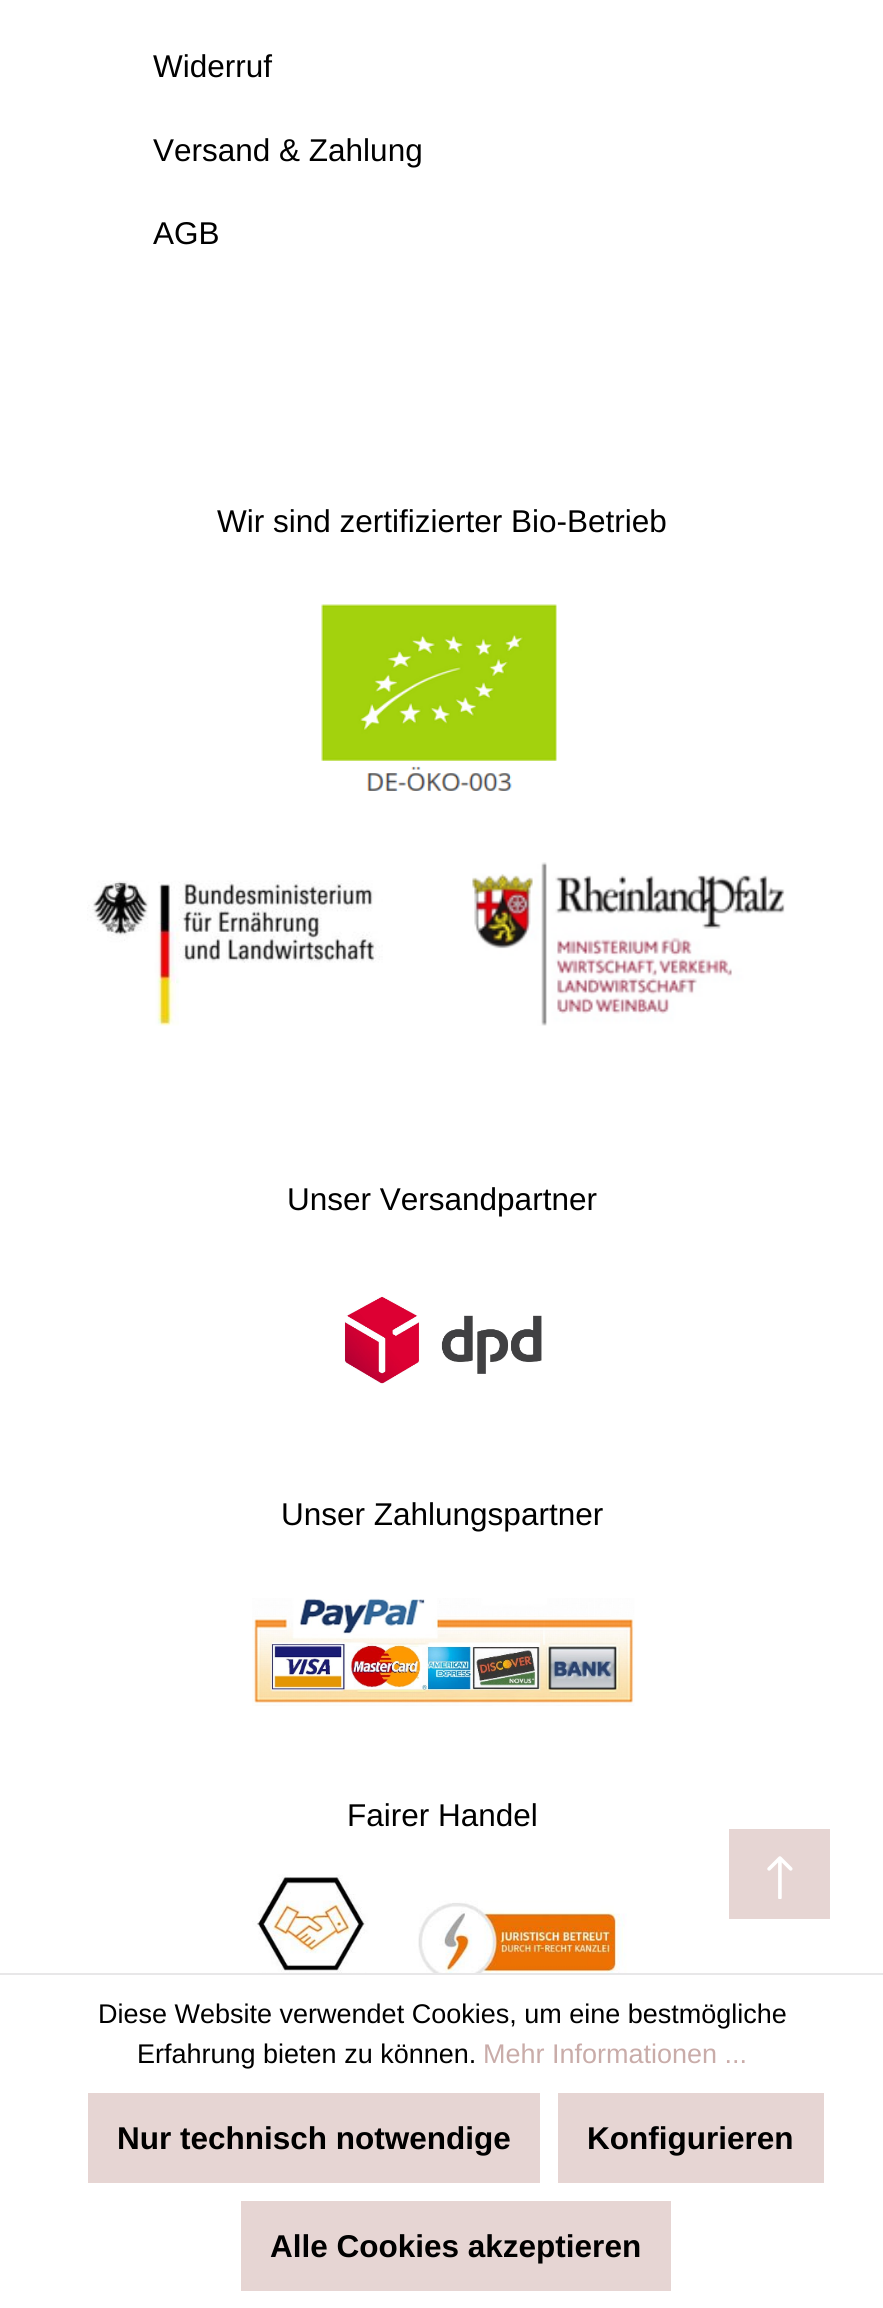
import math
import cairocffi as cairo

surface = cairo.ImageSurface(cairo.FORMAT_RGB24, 883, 2308)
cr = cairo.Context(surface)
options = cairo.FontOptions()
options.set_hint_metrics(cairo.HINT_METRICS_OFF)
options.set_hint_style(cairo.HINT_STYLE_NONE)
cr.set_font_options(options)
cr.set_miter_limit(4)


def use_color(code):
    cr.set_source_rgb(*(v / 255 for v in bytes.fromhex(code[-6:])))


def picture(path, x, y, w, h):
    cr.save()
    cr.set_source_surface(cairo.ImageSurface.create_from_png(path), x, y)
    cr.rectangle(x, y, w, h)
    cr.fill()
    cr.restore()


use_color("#ffffff")
cr.paint()
cr.select_font_face("Liberation Sans")
cr.set_font_size(31.5)
use_color("#000000")
cr.move_to(153, 77)
cr.show_text("Widerruf")
cr.move_to(153, 161)
cr.show_text("Versand & Zahlung")
cr.move_to(153, 244)
cr.show_text("AGB")
cr.move_to(217, 532)
cr.show_text("Wir sind zertifizierter Bio-Betrieb")
picture("img1.png", 321, 604, 236, 187)
picture("img2.png", 87, 880, 296, 146)
picture("img3.png", 472, 862, 313, 164)
cr.move_to(287, 1210)
cr.show_text("Unser Versandpartner")
picture("img4.png", 344, 1296, 198, 88)
cr.move_to(281, 1525)
cr.show_text("Unser Zahlungspartner")
picture("img5.png", 252, 1598, 383, 108)
cr.move_to(347, 1826)
cr.show_text("Fairer Handel")
picture("img6.png", 252, 1874, 375, 99)
use_color("#e6d5d3")
cr.rectangle(729, 1829, 101, 90)
cr.fill()
picture("img7.png", 767, 1856, 26, 43)
use_color("#e8e7e8")
cr.rectangle(0, 1973, 883, 2)
cr.fill()
cr.set_font_size(27)
use_color("#000000")
cr.move_to(98, 2023)
cr.show_text("Diese Website verwendet Cookies, um eine bestmögliche")
cr.move_to(137, 2063)
cr.show_text("Erfahrung bieten zu können.")
use_color("#c9aca9")
cr.move_to(483, 2063)
cr.show_text("Mehr Informationen ...")
use_color("#e6d5d3")
cr.rectangle(88, 2093, 452, 90)
cr.fill()
cr.select_font_face("Liberation Sans", cairo.FONT_SLANT_NORMAL, cairo.FONT_WEIGHT_BOLD)
cr.set_font_size(31.5)
use_color("#000000")
cr.move_to(117, 2149)
cr.show_text("Nur technisch notwendige")
use_color("#e6d5d3")
cr.rectangle(558, 2093, 266, 90)
cr.fill()
use_color("#000000")
cr.move_to(587, 2149)
cr.show_text("Konfigurieren")
use_color("#e6d5d3")
cr.rectangle(241, 2201, 430, 90)
cr.fill()
use_color("#000000")
cr.move_to(270, 2257)
cr.show_text("Alle Cookies akzeptieren")
surface.write_to_png("result.png")
